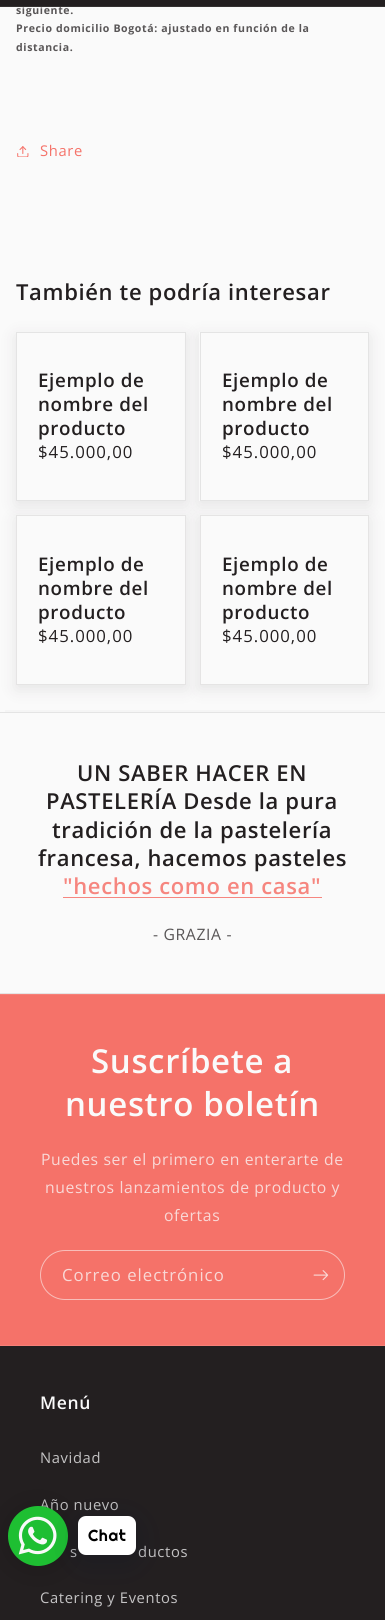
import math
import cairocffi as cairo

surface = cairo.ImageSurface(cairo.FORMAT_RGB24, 385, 1620)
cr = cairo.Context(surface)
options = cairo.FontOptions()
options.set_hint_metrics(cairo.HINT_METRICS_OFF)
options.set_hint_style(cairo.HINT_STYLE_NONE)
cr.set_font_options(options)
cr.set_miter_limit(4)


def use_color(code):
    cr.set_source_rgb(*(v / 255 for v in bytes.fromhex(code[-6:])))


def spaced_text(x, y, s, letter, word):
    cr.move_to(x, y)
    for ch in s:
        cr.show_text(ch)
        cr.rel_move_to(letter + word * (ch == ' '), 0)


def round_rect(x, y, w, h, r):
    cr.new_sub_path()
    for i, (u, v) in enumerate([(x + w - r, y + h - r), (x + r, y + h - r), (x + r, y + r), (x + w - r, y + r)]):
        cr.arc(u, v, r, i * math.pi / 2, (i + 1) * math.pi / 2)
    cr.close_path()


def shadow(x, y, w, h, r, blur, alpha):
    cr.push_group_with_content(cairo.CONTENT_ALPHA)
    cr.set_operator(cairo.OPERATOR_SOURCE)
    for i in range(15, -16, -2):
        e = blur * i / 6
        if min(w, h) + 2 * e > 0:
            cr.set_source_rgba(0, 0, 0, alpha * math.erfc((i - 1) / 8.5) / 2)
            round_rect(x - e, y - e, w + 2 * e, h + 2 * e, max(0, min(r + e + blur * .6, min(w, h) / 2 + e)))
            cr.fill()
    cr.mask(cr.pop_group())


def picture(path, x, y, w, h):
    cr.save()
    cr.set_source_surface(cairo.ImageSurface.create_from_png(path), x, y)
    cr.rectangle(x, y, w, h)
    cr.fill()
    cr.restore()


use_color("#fafafa")
cr.paint()
use_color("#231f20")
cr.rectangle(0, 0, 385, 6)
cr.fill()
cr.select_font_face("Open Sans", cairo.FONT_SLANT_NORMAL, cairo.FONT_WEIGHT_BOLD)
cr.set_font_size(10.55)
use_color("#595657")
spaced_text(16, 14, "siguiente.", 0.63, 0)
use_color("#343131")
cr.rectangle(0, 6, 385, 1)
cr.fill()
use_color("#595657")
spaced_text(16, 32, "Precio domicilio Bogotá: ajustado en función de la", 0.63, 0)
spaced_text(16, 51, "distancia.", 0.63, 0)
picture("img1.png", 17, 146, 12, 11)
cr.select_font_face("Open Sans")
cr.set_font_size(14.75)
use_color("#f57269")
spaced_text(40, 156, "Share", 0.63, 0)
cr.select_font_face("Open Sans SemiBold")
cr.set_font_size(22)
use_color("#231f20")
spaced_text(16, 300, "También te podría interesar", 0.65, 0)
cr.save()
cr.set_fill_rule(cairo.FILL_RULE_EVEN_ODD)
cr.new_path()
cr.move_to(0, 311)
cr.line_to(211, 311)
cr.line_to(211, 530)
cr.line_to(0, 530)
cr.close_path()
cr.move_to(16, 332)
cr.line_to(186, 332)
cr.line_to(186, 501)
cr.line_to(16, 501)
cr.close_path()
cr.clip()
use_color("#231f20")
shadow(16, 336, 170, 169, 0, 8, 0.1)
cr.restore()
cr.save()
cr.set_fill_rule(cairo.FILL_RULE_EVEN_ODD)
cr.new_path()
cr.move_to(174, 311)
cr.line_to(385, 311)
cr.line_to(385, 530)
cr.line_to(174, 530)
cr.close_path()
cr.move_to(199, 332)
cr.line_to(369, 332)
cr.line_to(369, 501)
cr.line_to(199, 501)
cr.close_path()
cr.clip()
use_color("#231f20")
shadow(199, 336, 170, 169, 0, 8, 0.1)
cr.restore()
use_color("#231f20")
shadow(16, 519, 170, 170, 0, 8, 0.1)
shadow(199, 519, 170, 170, 0, 8, 0.1)
cr.rectangle(16.5, 332.5, 169, 168)
use_color("#e4e4e4")
cr.set_line_width(1)
cr.stroke()
cr.set_font_size(18.75)
use_color("#231f20")
spaced_text(38, 387, "Ejemplo de", 0.65, 0)
spaced_text(38, 411, "nombre del", 0.65, 0)
spaced_text(38, 435, "producto", 0.65, 0)
cr.select_font_face("Open Sans")
cr.set_font_size(16.75)
spaced_text(38, 458, "$45.000,00", 1, 0)
cr.rectangle(200.5, 332.5, 168, 168)
use_color("#e4e4e4")
cr.stroke()
cr.select_font_face("Open Sans SemiBold")
cr.set_font_size(18.75)
use_color("#231f20")
spaced_text(222, 387, "Ejemplo de", 0.65, 0)
spaced_text(222, 411, "nombre del", 0.65, 0)
spaced_text(222, 435, "producto", 0.65, 0)
cr.select_font_face("Open Sans")
cr.set_font_size(16.75)
spaced_text(222, 458, "$45.000,00", 1, 0)
use_color("#fafafa")
cr.rectangle(16.5, 515.5, 169, 169)
cr.fill_preserve()
use_color("#e5e4e4")
cr.stroke()
cr.select_font_face("Open Sans SemiBold")
cr.set_font_size(18.75)
use_color("#231f20")
spaced_text(38, 571, "Ejemplo de", 0.65, 0)
spaced_text(38, 595, "nombre del", 0.65, 0)
spaced_text(38, 619, "producto", 0.65, 0)
cr.select_font_face("Open Sans")
cr.set_font_size(16.75)
spaced_text(38, 642, "$45.000,00", 1, 0)
use_color("#fafafa")
cr.rectangle(200.5, 515.5, 168, 169)
cr.fill_preserve()
use_color("#e5e4e4")
cr.stroke()
cr.select_font_face("Open Sans SemiBold")
cr.set_font_size(18.75)
use_color("#231f20")
spaced_text(222, 571, "Ejemplo de", 0.65, 0)
spaced_text(222, 595, "nombre del", 0.65, 0)
spaced_text(222, 619, "producto", 0.65, 0)
cr.select_font_face("Open Sans")
cr.set_font_size(16.75)
spaced_text(222, 642, "$45.000,00", 1, 0)
use_color("#e4e4e4")
cr.rectangle(0, 712, 385, 1)
cr.fill()
use_color("#e5e4e4")
cr.rectangle(0, 993, 385, 1)
cr.fill()
cr.save()
cr.rectangle(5, 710, 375, 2)
cr.clip()
use_color("#231f20")
shadow(0, 716, 385, 282, 0, 7.5, 0.1)
cr.restore()
cr.select_font_face("Open Sans SemiBold")
cr.set_font_size(22)
use_color("#231f20")
spaced_text(77, 781, "UN SABER HACER EN", 0.65, 0)
spaced_text(46, 809, "PASTELERÍA Desde la pura", 0.65, 0)
spaced_text(52, 838, "tradición de la pastelería", 0.65, 0)
spaced_text(38, 866, "francesa, hacemos pasteles", 0.65, 0)
use_color("#f6867f")
spaced_text(63, 894, "\"hechos como en casa\"", 0.65, 0)
cr.rectangle(63, 897, 259, 1)
cr.fill()
cr.select_font_face("Open Sans")
cr.set_font_size(15.75)
use_color("#595657")
spaced_text(153, 940, "- GRAZIA -", 0.63, 0)
use_color("#f57269")
cr.rectangle(0, 995, 385, 350)
cr.fill()
use_color("#f68078")
cr.rectangle(0, 994, 385, 1)
cr.fill()
cr.rectangle(0, 1345, 385, 1)
cr.fill()
cr.select_font_face("Open Sans SemiBold")
cr.set_font_size(33)
use_color("#fafafa")
spaced_text(91, 1073, "Suscríbete a", 0.65, 0)
spaced_text(65, 1116, "nuestro boletín", 0.65, 0)
cr.select_font_face("Open Sans")
cr.set_font_size(15.75)
use_color("#f9d8d6")
spaced_text(41, 1165, "Puedes ser el primero en enterarte de", 0.63, 0)
spaced_text(45, 1193, "nuestros lanzamientos de producto y", 0.63, 0)
spaced_text(164, 1221, "ofertas", 0.63, 0)
round_rect(40.5, 1250.5, 304, 49, 24.5)
use_color("#f8bdb9")
cr.stroke()
cr.set_font_size(16.75)
use_color("#f9d8d6")
spaced_text(62, 1281, "Correo electrónico", 1, 0)
picture("img2.png", 313, 1270, 16, 11)
use_color("#231f20")
cr.rectangle(0, 1346, 385, 274)
cr.fill()
cr.select_font_face("Open Sans SemiBold")
cr.set_font_size(17.5)
use_color("#fafafa")
spaced_text(40, 1409, "Menú", 0.65, 0)
cr.select_font_face("Open Sans")
cr.set_font_size(14.75)
use_color("#c4c3c4")
spaced_text(40, 1463, "Navidad", 0.63, 0)
spaced_text(40, 1510, "Año nuevo", 0.63, 0)
spaced_text(70, 1557, "s", 0.63, 0)
spaced_text(138, 1557, "ductos", 0.63, 0)
spaced_text(40, 1603, "Catering y Eventos", 0.63, 0)
use_color("#000000")
shadow(8, 1508, 60, 60, 30, 16, 0.16)
use_color("#1ebf32")
cr.arc(38, 1536, 30, 0, 2 * math.pi)
cr.fill()
use_color("#00122e")
shadow(78, 1522, 58, 39, 8, 16, 0.24)
picture("img3.png", 18, 1516, 39, 39)
use_color("#ffffff")
round_rect(78, 1516, 58, 39, 8)
cr.fill()
cr.select_font_face("Righteous")
cr.set_font_size(16)
use_color("#000000")
spaced_text(88, 1541, "Chat", 0.63, 0)
surface.write_to_png("result.png")
